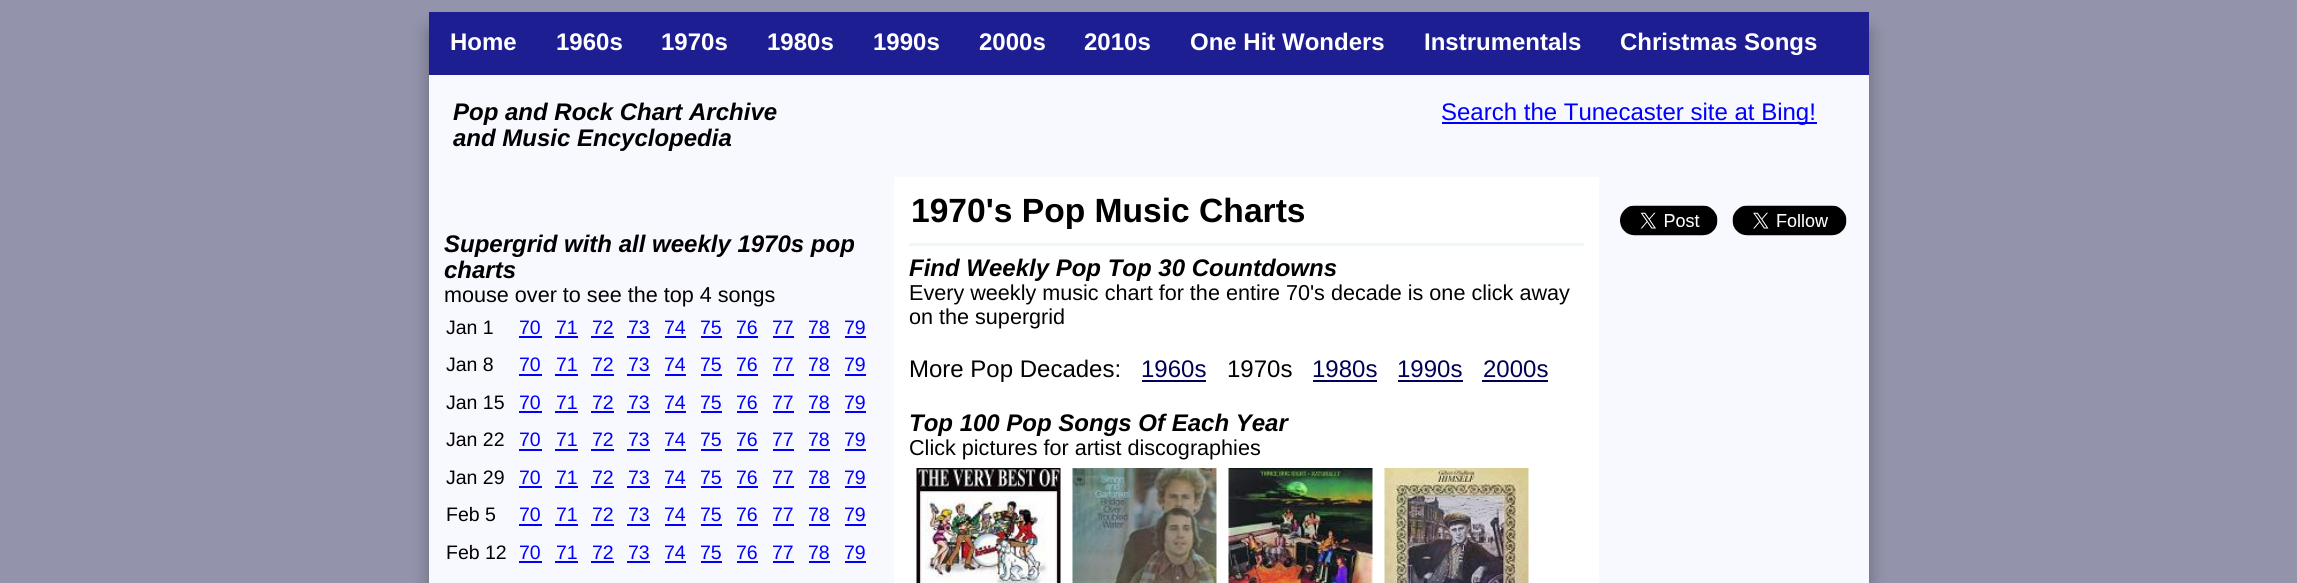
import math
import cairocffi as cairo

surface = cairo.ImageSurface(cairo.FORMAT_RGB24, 2297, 583)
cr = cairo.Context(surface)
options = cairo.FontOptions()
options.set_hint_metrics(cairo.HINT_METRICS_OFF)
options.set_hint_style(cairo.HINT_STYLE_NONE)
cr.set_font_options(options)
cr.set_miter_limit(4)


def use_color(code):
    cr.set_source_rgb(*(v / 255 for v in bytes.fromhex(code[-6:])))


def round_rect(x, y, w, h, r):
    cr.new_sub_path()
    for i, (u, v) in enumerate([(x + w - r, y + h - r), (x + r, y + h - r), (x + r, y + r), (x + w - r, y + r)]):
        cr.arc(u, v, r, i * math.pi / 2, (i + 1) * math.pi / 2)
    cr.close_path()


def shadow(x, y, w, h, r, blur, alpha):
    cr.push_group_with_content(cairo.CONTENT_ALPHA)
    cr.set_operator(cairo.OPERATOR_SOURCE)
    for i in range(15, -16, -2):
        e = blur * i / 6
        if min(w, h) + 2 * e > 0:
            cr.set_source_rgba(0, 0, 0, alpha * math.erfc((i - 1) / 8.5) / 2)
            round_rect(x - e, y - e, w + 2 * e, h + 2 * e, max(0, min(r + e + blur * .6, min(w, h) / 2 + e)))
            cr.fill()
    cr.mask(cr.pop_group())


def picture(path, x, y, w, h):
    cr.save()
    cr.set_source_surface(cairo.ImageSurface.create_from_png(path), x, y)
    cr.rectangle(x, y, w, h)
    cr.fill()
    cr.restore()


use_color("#9393ac")
cr.paint()
use_color("#000000")
shadow(429, 30, 1440, 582, 1.5, 9, 0.3)
use_color("#f8f8ff")
cr.rectangle(429, 75, 1440, 508)
cr.fill()
use_color("#1e1e93")
cr.rectangle(429, 12, 1440, 63)
cr.fill()
cr.select_font_face("Liberation Sans", cairo.FONT_SLANT_NORMAL, cairo.FONT_WEIGHT_BOLD)
cr.set_font_size(24)
use_color("#ffffff")
cr.move_to(450, 50)
cr.show_text("Home")
cr.move_to(556, 50)
cr.show_text("1960s")
cr.move_to(661, 50)
cr.show_text("1970s")
cr.move_to(767, 50)
cr.show_text("1980s")
cr.move_to(873, 50)
cr.show_text("1990s")
cr.move_to(979, 50)
cr.show_text("2000s")
cr.move_to(1084, 50)
cr.show_text("2010s")
cr.move_to(1190, 50)
cr.show_text("One Hit Wonders")
cr.move_to(1424, 50)
cr.show_text("Instrumentals")
cr.move_to(1620, 50)
cr.show_text("Christmas Songs")
cr.select_font_face("Liberation Sans", cairo.FONT_SLANT_ITALIC, cairo.FONT_WEIGHT_BOLD)
use_color("#000000")
cr.move_to(453, 120)
cr.show_text("Pop and Rock Chart Archive")
cr.move_to(453, 146)
cr.show_text("and Music Encyclopedia")
use_color("#0000ff")
cr.rectangle(1442, 122, 375, 2)
cr.fill()
cr.select_font_face("Liberation Sans")
cr.move_to(1441, 120)
cr.show_text("Search the Tunecaster site at Bing!")
use_color("#ffffff")
cr.rectangle(894, 177, 705, 406)
cr.fill()
cr.select_font_face("Liberation Sans", cairo.FONT_SLANT_NORMAL, cairo.FONT_WEIGHT_BOLD)
cr.set_font_size(33.6)
use_color("#000000")
cr.move_to(911, 222)
cr.show_text("1970's Pop Music Charts")
use_color("#eefaee")
cr.rectangle(909, 243, 675, 3)
cr.fill()
cr.select_font_face("Liberation Sans", cairo.FONT_SLANT_ITALIC, cairo.FONT_WEIGHT_BOLD)
cr.set_font_size(24)
use_color("#000000")
cr.move_to(909, 276)
cr.show_text("Find Weekly Pop Top 30 Countdowns")
cr.select_font_face("Liberation Sans")
cr.set_font_size(21.6)
cr.move_to(909, 300)
cr.show_text("Every weekly music chart for the entire 70's decade is one click away")
cr.move_to(909, 324)
cr.show_text("on the supergrid")
cr.set_font_size(24)
cr.move_to(909, 377)
cr.show_text("More Pop Decades:")
use_color("#000055")
cr.move_to(1141, 377)
cr.show_text("1960s")
cr.rectangle(1142, 380, 64, 2)
cr.fill()
use_color("#000000")
cr.move_to(1227, 377)
cr.show_text("1970s")
use_color("#000055")
cr.move_to(1312, 377)
cr.show_text("1980s")
cr.rectangle(1313, 380, 64, 2)
cr.fill()
cr.move_to(1397, 377)
cr.show_text("1990s")
cr.rectangle(1398, 380, 65, 2)
cr.fill()
cr.move_to(1483, 377)
cr.show_text("2000s")
cr.rectangle(1482, 380, 66, 2)
cr.fill()
cr.select_font_face("Liberation Sans", cairo.FONT_SLANT_ITALIC, cairo.FONT_WEIGHT_BOLD)
use_color("#000000")
cr.move_to(909, 431)
cr.show_text("Top 100 Pop Songs Of Each Year")
cr.select_font_face("Liberation Sans")
cr.set_font_size(21.6)
cr.move_to(909, 455)
cr.show_text("Click pictures for artist discographies")
picture("img1.png", 916, 468, 145, 115)
picture("img2.png", 1072, 468, 145, 115)
picture("img3.png", 1228, 468, 145, 115)
picture("img4.png", 1384, 468, 145, 115)
picture("img5.png", 1620, 205, 98, 31)
picture("img6.png", 1732, 205, 115, 31)
cr.select_font_face("Liberation Sans", cairo.FONT_SLANT_ITALIC, cairo.FONT_WEIGHT_BOLD)
cr.set_font_size(24)
cr.move_to(444, 252)
cr.show_text("Supergrid with all weekly 1970s pop")
cr.move_to(444, 278)
cr.show_text("charts")
cr.select_font_face("Liberation Sans")
cr.set_font_size(21.6)
cr.move_to(444, 302)
cr.show_text("mouse over to see the top 4 songs")
cr.set_font_size(19.5)
cr.move_to(446, 334)
cr.show_text("Jan 1")
use_color("#0000ff")
cr.move_to(519, 334)
cr.show_text("70")
cr.rectangle(519, 336, 23, 2)
cr.fill()
cr.move_to(556, 334)
cr.show_text("71")
cr.rectangle(555, 336, 23, 2)
cr.fill()
cr.move_to(592, 334)
cr.show_text("72")
cr.rectangle(591, 336, 23, 2)
cr.fill()
cr.move_to(628, 334)
cr.show_text("73")
cr.rectangle(627, 336, 23, 2)
cr.fill()
cr.move_to(664, 334)
cr.show_text("74")
cr.rectangle(665, 336, 21, 2)
cr.fill()
cr.move_to(700, 334)
cr.show_text("75")
cr.rectangle(701, 336, 21, 2)
cr.fill()
cr.move_to(736, 334)
cr.show_text("76")
cr.rectangle(737, 336, 21, 2)
cr.fill()
cr.move_to(772, 334)
cr.show_text("77")
cr.rectangle(773, 336, 21, 2)
cr.fill()
cr.move_to(808, 334)
cr.show_text("78")
cr.rectangle(809, 336, 21, 2)
cr.fill()
cr.move_to(844, 334)
cr.show_text("79")
cr.rectangle(845, 336, 21, 2)
cr.fill()
use_color("#000000")
cr.move_to(446, 371)
cr.show_text("Jan 8")
use_color("#0000ff")
cr.move_to(519, 371)
cr.show_text("70")
cr.rectangle(519, 374, 23, 2)
cr.fill()
cr.move_to(556, 371)
cr.show_text("71")
cr.rectangle(555, 374, 23, 2)
cr.fill()
cr.move_to(592, 371)
cr.show_text("72")
cr.rectangle(591, 374, 23, 2)
cr.fill()
cr.move_to(628, 371)
cr.show_text("73")
cr.rectangle(627, 374, 23, 2)
cr.fill()
cr.move_to(664, 371)
cr.show_text("74")
cr.rectangle(665, 374, 21, 2)
cr.fill()
cr.move_to(700, 371)
cr.show_text("75")
cr.rectangle(701, 374, 21, 2)
cr.fill()
cr.move_to(736, 371)
cr.show_text("76")
cr.rectangle(737, 374, 21, 2)
cr.fill()
cr.move_to(772, 371)
cr.show_text("77")
cr.rectangle(773, 374, 21, 2)
cr.fill()
cr.move_to(808, 371)
cr.show_text("78")
cr.rectangle(809, 374, 21, 2)
cr.fill()
cr.move_to(844, 371)
cr.show_text("79")
cr.rectangle(845, 374, 21, 2)
cr.fill()
use_color("#000000")
cr.move_to(446, 409)
cr.show_text("Jan 15")
use_color("#0000ff")
cr.move_to(519, 409)
cr.show_text("70")
cr.rectangle(519, 411, 23, 2)
cr.fill()
cr.move_to(556, 409)
cr.show_text("71")
cr.rectangle(555, 411, 23, 2)
cr.fill()
cr.move_to(592, 409)
cr.show_text("72")
cr.rectangle(591, 411, 23, 2)
cr.fill()
cr.move_to(628, 409)
cr.show_text("73")
cr.rectangle(627, 411, 23, 2)
cr.fill()
cr.move_to(664, 409)
cr.show_text("74")
cr.rectangle(665, 411, 21, 2)
cr.fill()
cr.move_to(700, 409)
cr.show_text("75")
cr.rectangle(701, 411, 21, 2)
cr.fill()
cr.move_to(736, 409)
cr.show_text("76")
cr.rectangle(737, 411, 21, 2)
cr.fill()
cr.move_to(772, 409)
cr.show_text("77")
cr.rectangle(773, 411, 21, 2)
cr.fill()
cr.move_to(808, 409)
cr.show_text("78")
cr.rectangle(809, 411, 21, 2)
cr.fill()
cr.move_to(844, 409)
cr.show_text("79")
cr.rectangle(845, 411, 21, 2)
cr.fill()
use_color("#000000")
cr.move_to(446, 446)
cr.show_text("Jan 22")
use_color("#0000ff")
cr.move_to(519, 446)
cr.show_text("70")
cr.rectangle(519, 449, 23, 2)
cr.fill()
cr.move_to(556, 446)
cr.show_text("71")
cr.rectangle(555, 449, 23, 2)
cr.fill()
cr.move_to(592, 446)
cr.show_text("72")
cr.rectangle(591, 449, 23, 2)
cr.fill()
cr.move_to(628, 446)
cr.show_text("73")
cr.rectangle(627, 449, 23, 2)
cr.fill()
cr.move_to(664, 446)
cr.show_text("74")
cr.rectangle(665, 449, 21, 2)
cr.fill()
cr.move_to(700, 446)
cr.show_text("75")
cr.rectangle(701, 449, 21, 2)
cr.fill()
cr.move_to(736, 446)
cr.show_text("76")
cr.rectangle(737, 449, 21, 2)
cr.fill()
cr.move_to(772, 446)
cr.show_text("77")
cr.rectangle(773, 449, 21, 2)
cr.fill()
cr.move_to(808, 446)
cr.show_text("78")
cr.rectangle(809, 449, 21, 2)
cr.fill()
cr.move_to(844, 446)
cr.show_text("79")
cr.rectangle(845, 449, 21, 2)
cr.fill()
use_color("#000000")
cr.move_to(446, 484)
cr.show_text("Jan 29")
use_color("#0000ff")
cr.move_to(519, 484)
cr.show_text("70")
cr.rectangle(519, 486, 23, 2)
cr.fill()
cr.move_to(556, 484)
cr.show_text("71")
cr.rectangle(555, 486, 23, 2)
cr.fill()
cr.move_to(592, 484)
cr.show_text("72")
cr.rectangle(591, 486, 23, 2)
cr.fill()
cr.move_to(628, 484)
cr.show_text("73")
cr.rectangle(627, 486, 23, 2)
cr.fill()
cr.move_to(664, 484)
cr.show_text("74")
cr.rectangle(665, 486, 21, 2)
cr.fill()
cr.move_to(700, 484)
cr.show_text("75")
cr.rectangle(701, 486, 21, 2)
cr.fill()
cr.move_to(736, 484)
cr.show_text("76")
cr.rectangle(737, 486, 21, 2)
cr.fill()
cr.move_to(772, 484)
cr.show_text("77")
cr.rectangle(773, 486, 21, 2)
cr.fill()
cr.move_to(808, 484)
cr.show_text("78")
cr.rectangle(809, 486, 21, 2)
cr.fill()
cr.move_to(844, 484)
cr.show_text("79")
cr.rectangle(845, 486, 21, 2)
cr.fill()
use_color("#000000")
cr.move_to(446, 521)
cr.show_text("Feb 5")
use_color("#0000ff")
cr.move_to(519, 521)
cr.show_text("70")
cr.rectangle(519, 524, 23, 2)
cr.fill()
cr.move_to(556, 521)
cr.show_text("71")
cr.rectangle(555, 524, 23, 2)
cr.fill()
cr.move_to(592, 521)
cr.show_text("72")
cr.rectangle(591, 524, 23, 2)
cr.fill()
cr.move_to(628, 521)
cr.show_text("73")
cr.rectangle(627, 524, 23, 2)
cr.fill()
cr.move_to(664, 521)
cr.show_text("74")
cr.rectangle(665, 524, 21, 2)
cr.fill()
cr.move_to(700, 521)
cr.show_text("75")
cr.rectangle(701, 524, 21, 2)
cr.fill()
cr.move_to(736, 521)
cr.show_text("76")
cr.rectangle(737, 524, 21, 2)
cr.fill()
cr.move_to(772, 521)
cr.show_text("77")
cr.rectangle(773, 524, 21, 2)
cr.fill()
cr.move_to(808, 521)
cr.show_text("78")
cr.rectangle(809, 524, 21, 2)
cr.fill()
cr.move_to(844, 521)
cr.show_text("79")
cr.rectangle(845, 524, 21, 2)
cr.fill()
use_color("#000000")
cr.move_to(446, 559)
cr.show_text("Feb 12")
use_color("#0000ff")
cr.move_to(519, 559)
cr.show_text("70")
cr.rectangle(519, 561, 23, 2)
cr.fill()
cr.move_to(556, 559)
cr.show_text("71")
cr.rectangle(555, 561, 23, 2)
cr.fill()
cr.move_to(592, 559)
cr.show_text("72")
cr.rectangle(591, 561, 23, 2)
cr.fill()
cr.move_to(628, 559)
cr.show_text("73")
cr.rectangle(627, 561, 23, 2)
cr.fill()
cr.move_to(664, 559)
cr.show_text("74")
cr.rectangle(665, 561, 21, 2)
cr.fill()
cr.move_to(700, 559)
cr.show_text("75")
cr.rectangle(701, 561, 21, 2)
cr.fill()
cr.move_to(736, 559)
cr.show_text("76")
cr.rectangle(737, 561, 21, 2)
cr.fill()
cr.move_to(772, 559)
cr.show_text("77")
cr.rectangle(773, 561, 21, 2)
cr.fill()
cr.move_to(808, 559)
cr.show_text("78")
cr.rectangle(809, 561, 21, 2)
cr.fill()
cr.move_to(844, 559)
cr.show_text("79")
cr.rectangle(845, 561, 21, 2)
cr.fill()
surface.write_to_png("result.png")
